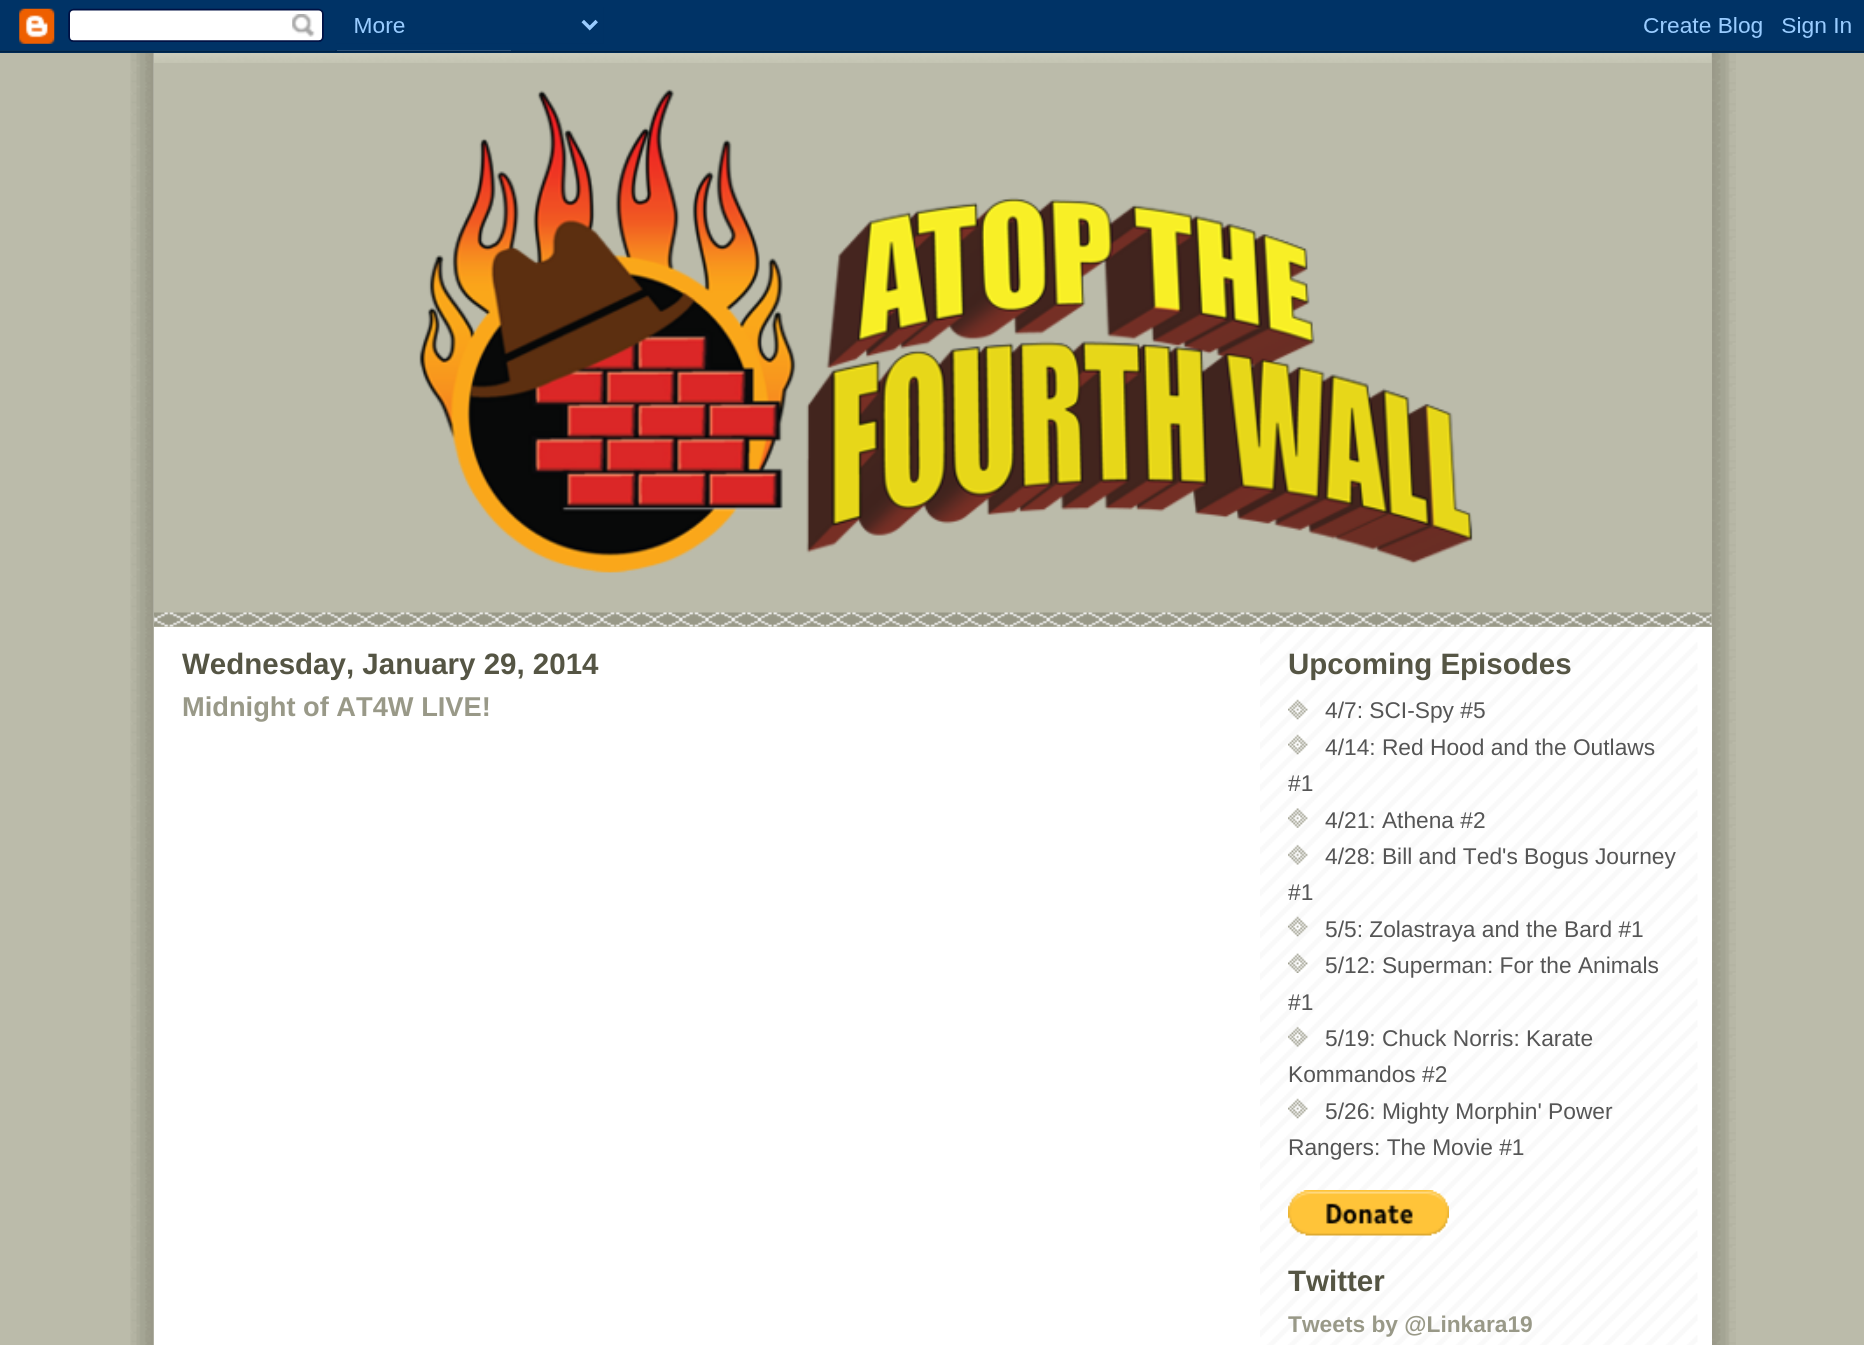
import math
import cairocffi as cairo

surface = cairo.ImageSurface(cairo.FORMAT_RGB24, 1864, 1345)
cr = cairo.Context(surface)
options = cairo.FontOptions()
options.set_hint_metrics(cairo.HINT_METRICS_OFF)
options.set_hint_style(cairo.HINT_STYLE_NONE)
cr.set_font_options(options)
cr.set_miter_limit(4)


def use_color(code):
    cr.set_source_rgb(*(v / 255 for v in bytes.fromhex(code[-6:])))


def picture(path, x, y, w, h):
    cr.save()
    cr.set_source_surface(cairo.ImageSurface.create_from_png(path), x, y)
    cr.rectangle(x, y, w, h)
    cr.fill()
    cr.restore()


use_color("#bbbbaa")
cr.paint()
picture("img1.png", 130, 50, 1606, 1295)
picture("img2.png", 0, 0, 1864, 53)
use_color("#ffffff")
cr.rectangle(154, 627, 1558, 718)
cr.fill()
picture("img3.png", 1260, 627, 452, 718)
use_color("#bbbbaa")
cr.rectangle(154, 53, 1558, 574)
cr.fill()
picture("img4.png", 154, 612, 1558, 15)
picture("img5.png", 154, 53, 1558, 10)
picture("img6.png", 419, 89, 1054, 484)
cr.select_font_face("Liberation Sans", cairo.FONT_SLANT_NORMAL, cairo.FONT_WEIGHT_BOLD)
cr.set_font_size(29.5)
use_color("#555544")
cr.move_to(182, 674)
cr.show_text("Wednesday, January 29, 2014")
cr.set_font_size(27.25)
use_color("#999988")
cr.move_to(182, 716)
cr.show_text("Midnight of AT4W LIVE!")
cr.set_font_size(29.5)
use_color("#555544")
cr.move_to(1288, 674)
cr.show_text("Upcoming Episodes")
picture("img7.png", 1288, 699, 20, 21)
cr.select_font_face("Liberation Sans")
cr.set_font_size(22.75)
use_color("#555555")
cr.move_to(1325, 718)
cr.show_text("4/7: SCI-Spy #5")
picture("img8.png", 1288, 734, 20, 21)
cr.move_to(1325, 755)
cr.show_text("4/14: Red Hood and the Outlaws")
cr.move_to(1288, 791)
cr.show_text("#1")
picture("img9.png", 1288, 808, 20, 20)
cr.move_to(1325, 828)
cr.show_text("4/21: Athena #2")
picture("img10.png", 1288, 844, 20, 21)
cr.move_to(1325, 864)
cr.show_text("4/28: Bill and Ted's Bogus Journey")
cr.move_to(1288, 900)
cr.show_text("#1")
picture("img11.png", 1288, 916, 20, 21)
cr.move_to(1325, 937)
cr.show_text("5/5: Zolastraya and the Bard #1")
picture("img12.png", 1288, 953, 20, 20)
cr.move_to(1325, 973)
cr.show_text("5/12: Superman: For the Animals")
cr.move_to(1288, 1010)
cr.show_text("#1")
picture("img13.png", 1288, 1026, 20, 21)
cr.move_to(1325, 1046)
cr.show_text("5/19: Chuck Norris: Karate")
cr.move_to(1288, 1082)
cr.show_text("Kommandos #2")
picture("img7.png", 1288, 1098, 20, 21)
cr.move_to(1325, 1119)
cr.show_text("5/26: Mighty Morphin' Power")
cr.move_to(1288, 1155)
cr.show_text("Rangers: The Movie #1")
picture("img14.png", 1288, 1190, 161, 46)
cr.select_font_face("Liberation Sans", cairo.FONT_SLANT_NORMAL, cairo.FONT_WEIGHT_BOLD)
cr.set_font_size(29.5)
use_color("#555544")
cr.move_to(1288, 1291)
cr.show_text("Twitter")
cr.set_font_size(22.75)
use_color("#999988")
cr.move_to(1288, 1332)
cr.show_text("Tweets by @Linkara19")
surface.write_to_png("result.png")
